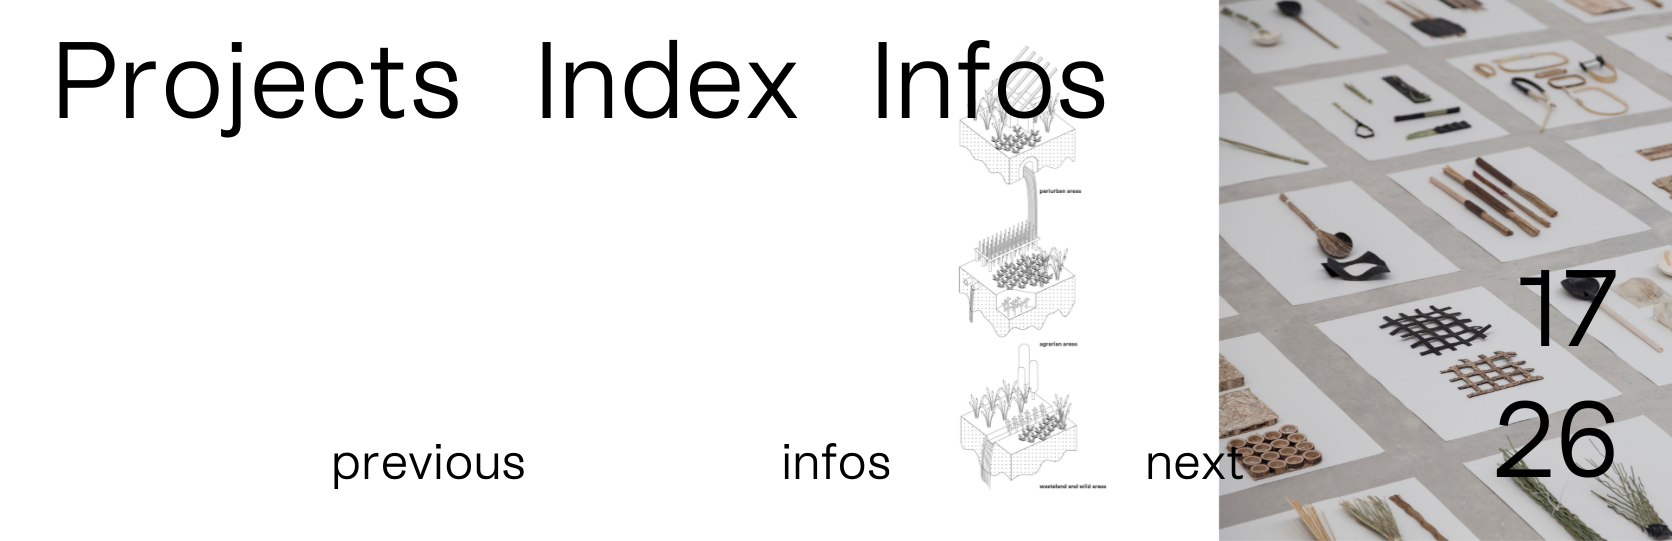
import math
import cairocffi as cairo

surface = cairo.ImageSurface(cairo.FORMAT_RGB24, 1672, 541)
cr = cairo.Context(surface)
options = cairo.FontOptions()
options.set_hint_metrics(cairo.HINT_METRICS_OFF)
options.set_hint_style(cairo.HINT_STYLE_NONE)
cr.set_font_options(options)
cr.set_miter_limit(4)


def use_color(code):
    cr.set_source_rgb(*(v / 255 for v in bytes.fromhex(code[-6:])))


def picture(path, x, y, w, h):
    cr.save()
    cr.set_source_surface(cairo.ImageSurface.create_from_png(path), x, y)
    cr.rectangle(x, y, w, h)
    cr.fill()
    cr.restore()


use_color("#ffffff")
cr.paint()
cr.select_font_face("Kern")
cr.set_font_size(108.5)
use_color("#000000")
cr.move_to(52, 118)
cr.show_text("Projects")
cr.move_to(535, 118)
cr.show_text("Index")
picture("img1.png", 958, 45, 149, 446)
cr.move_to(871, 118)
cr.show_text("Infos")
picture("img2.png", 1218, 0, 454, 541)
cr.set_font_size(50)
cr.move_to(331, 479)
cr.show_text("previous")
cr.move_to(781, 479)
cr.show_text("infos")
cr.move_to(1145, 479)
cr.show_text("next")
cr.set_font_size(108.5)
cr.move_to(1515, 346)
cr.show_text("17")
cr.move_to(1492, 477)
cr.show_text("26")
surface.write_to_png("result.png")
